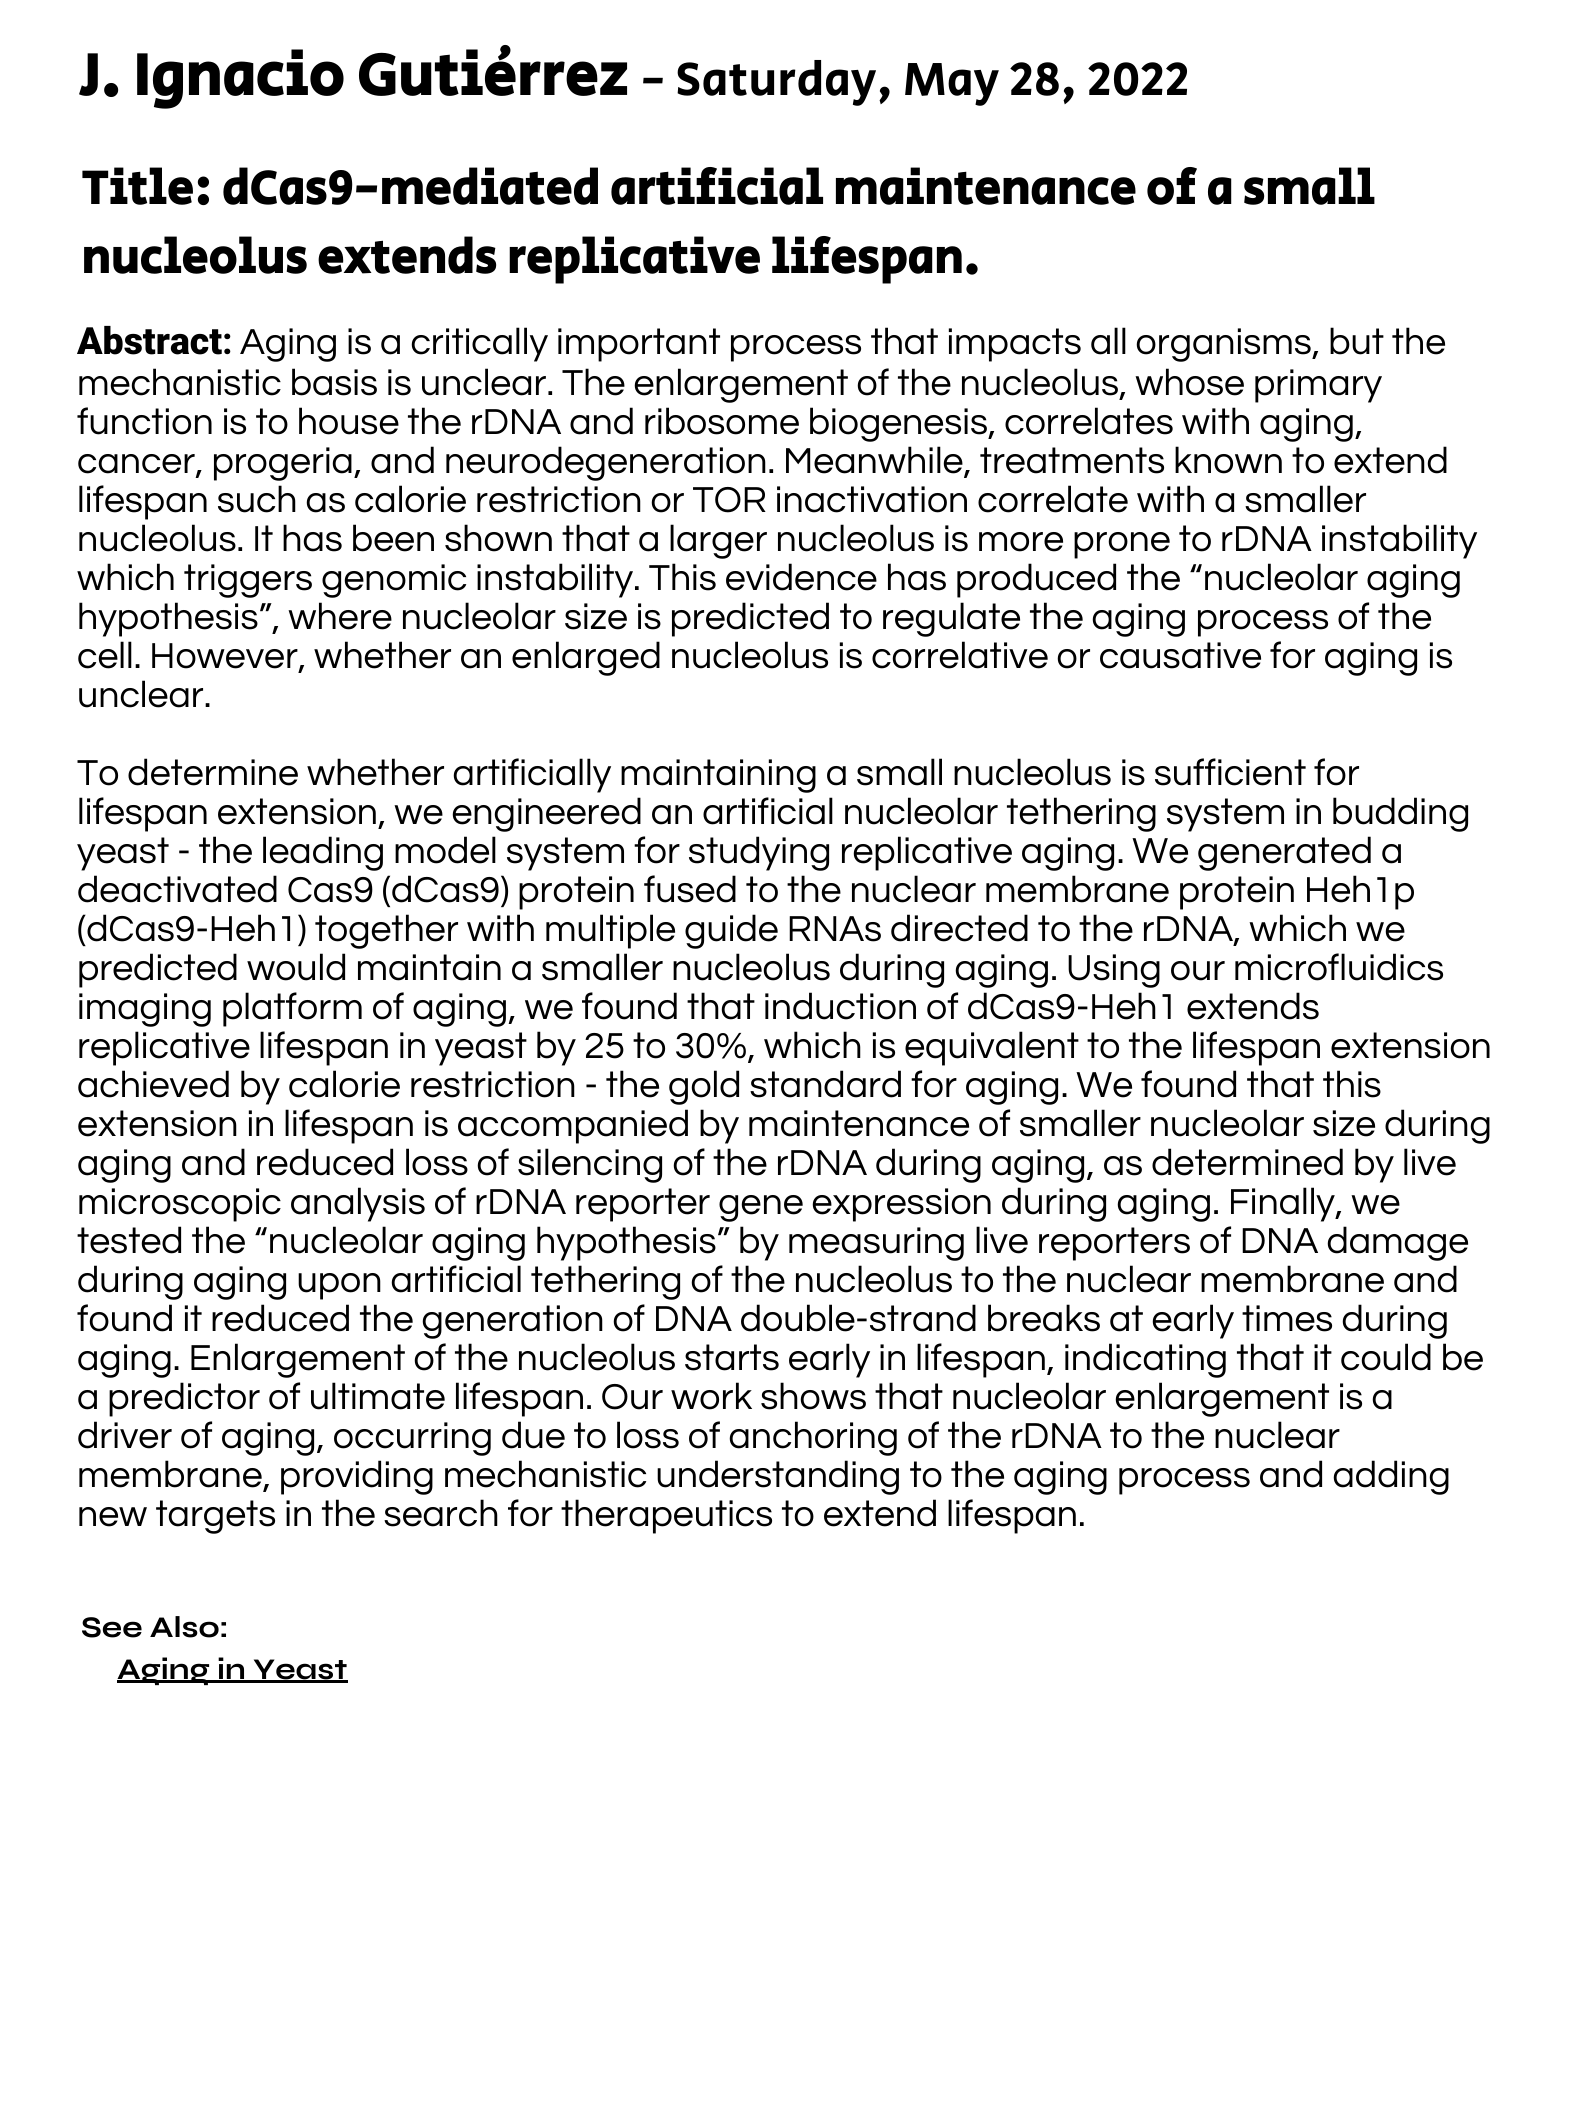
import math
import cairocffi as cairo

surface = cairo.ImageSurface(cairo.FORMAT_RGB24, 1574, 2125)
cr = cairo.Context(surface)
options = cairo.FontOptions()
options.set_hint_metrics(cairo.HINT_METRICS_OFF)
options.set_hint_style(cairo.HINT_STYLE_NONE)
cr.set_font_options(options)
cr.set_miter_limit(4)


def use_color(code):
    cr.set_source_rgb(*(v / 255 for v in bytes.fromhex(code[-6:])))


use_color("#ffffff")
cr.paint()
cr.select_font_face("Secular One", cairo.FONT_SLANT_NORMAL, cairo.FONT_WEIGHT_BOLD)
cr.set_font_size(60)
use_color("#000000")
cr.move_to(80, 95)
cr.show_text("J. Ignacio Gutiérrez")
cr.select_font_face("Secular One")
cr.set_font_size(48)
cr.move_to(640, 95)
cr.show_text("- Saturday, May 28, 2022")
cr.select_font_face("Secular One", cairo.FONT_SLANT_NORMAL, cairo.FONT_WEIGHT_BOLD)
cr.move_to(81, 204)
cr.show_text("Title: dCas9-mediated artificial maintenance of a small")
cr.move_to(81, 273)
cr.show_text("nucleolus extends replicative lifespan.")
cr.select_font_face("Roboto Black")
cr.set_font_size(37.5)
cr.move_to(77, 354)
cr.show_text("Abstract")
cr.select_font_face("Roboto", cairo.FONT_SLANT_NORMAL, cairo.FONT_WEIGHT_BOLD)
cr.move_to(222, 354)
cr.show_text(":")
cr.select_font_face("Questrial")
cr.move_to(240, 354)
cr.show_text("Aging is a critically important process that impacts all organisms, but the")
cr.move_to(77, 395)
cr.show_text("mechanistic basis is unclear. The enlargement of the nucleolus, whose primary")
cr.move_to(77, 434)
cr.show_text("function is to house the rDNA and ribosome biogenesis, correlates with aging,")
cr.move_to(77, 473)
cr.show_text("cancer, progeria, and neurodegeneration. Meanwhile, treatments known to extend")
cr.move_to(77, 512)
cr.show_text("lifespan such as calorie restriction or TOR inactivation correlate with a smaller")
cr.move_to(77, 551)
cr.show_text("nucleolus. It has been shown that a larger nucleolus is more prone to rDNA instability")
cr.move_to(77, 590)
cr.show_text("which triggers genomic instability. This evidence has produced the “nucleolar aging")
cr.move_to(77, 629)
cr.show_text("hypothesis”, where nucleolar size is predicted to regulate the aging process of the")
cr.move_to(77, 668)
cr.show_text("cell. However, whether an enlarged nucleolus is correlative or causative for aging is")
cr.move_to(77, 707)
cr.show_text("unclear.")
cr.move_to(77, 785)
cr.show_text("To determine whether artificially maintaining a small nucleolus is sufficient for")
cr.move_to(77, 824)
cr.show_text("lifespan extension, we engineered an artificial nucleolar tethering system in budding")
cr.move_to(77, 863)
cr.show_text("yeast - the leading model system for studying replicative aging. We generated a")
cr.move_to(77, 902)
cr.show_text("deactivated Cas9 (dCas9) protein fused to the nuclear membrane protein Heh1p")
cr.move_to(77, 941)
cr.show_text("(dCas9-Heh1) together with multiple guide RNAs directed to the rDNA, which we")
cr.move_to(77, 980)
cr.show_text("predicted would maintain a smaller nucleolus during aging. Using our microfluidics")
cr.move_to(77, 1019)
cr.show_text("imaging platform of aging, we found that induction of dCas9-Heh1 extends")
cr.move_to(77, 1058)
cr.show_text("replicative lifespan in yeast by 25 to 30%, which is equivalent to the lifespan extension")
cr.move_to(77, 1097)
cr.show_text("achieved by calorie restriction - the gold standard for aging. We found that this")
cr.move_to(77, 1136)
cr.show_text("extension in lifespan is accompanied by maintenance of smaller nucleolar size during")
cr.move_to(77, 1175)
cr.show_text("aging and reduced loss of silencing of the rDNA during aging, as determined by live")
cr.move_to(77, 1214)
cr.show_text("microscopic analysis of rDNA reporter gene expression during aging. Finally, we")
cr.move_to(77, 1253)
cr.show_text("tested the “nucleolar aging hypothesis” by measuring live reporters of DNA damage")
cr.move_to(77, 1292)
cr.show_text("during aging upon artificial tethering of the nucleolus to the nuclear membrane and")
cr.move_to(77, 1331)
cr.show_text("found it reduced the generation of DNA double-strand breaks at early times during")
cr.move_to(77, 1370)
cr.show_text("aging. Enlargement of the nucleolus starts early in lifespan, indicating that it could be")
cr.move_to(77, 1409)
cr.show_text("a predictor of ultimate lifespan. Our work shows that nucleolar enlargement is a")
cr.move_to(77, 1448)
cr.show_text("driver of aging, occurring due to loss of anchoring of the rDNA to the nuclear")
cr.move_to(77, 1487)
cr.show_text("membrane, providing mechanistic understanding to the aging process and adding")
cr.move_to(77, 1526)
cr.show_text("new targets in the search for therapeutics to extend lifespan.")
cr.select_font_face("Syne", cairo.FONT_SLANT_NORMAL, cairo.FONT_WEIGHT_BOLD)
cr.set_font_size(30)
cr.move_to(81, 1637)
cr.show_text("See Also:")
cr.rectangle(117, 1680, 231, 3)
cr.fill()
cr.move_to(117, 1679)
cr.show_text("Aging in Yeast")
surface.write_to_png("result.png")
